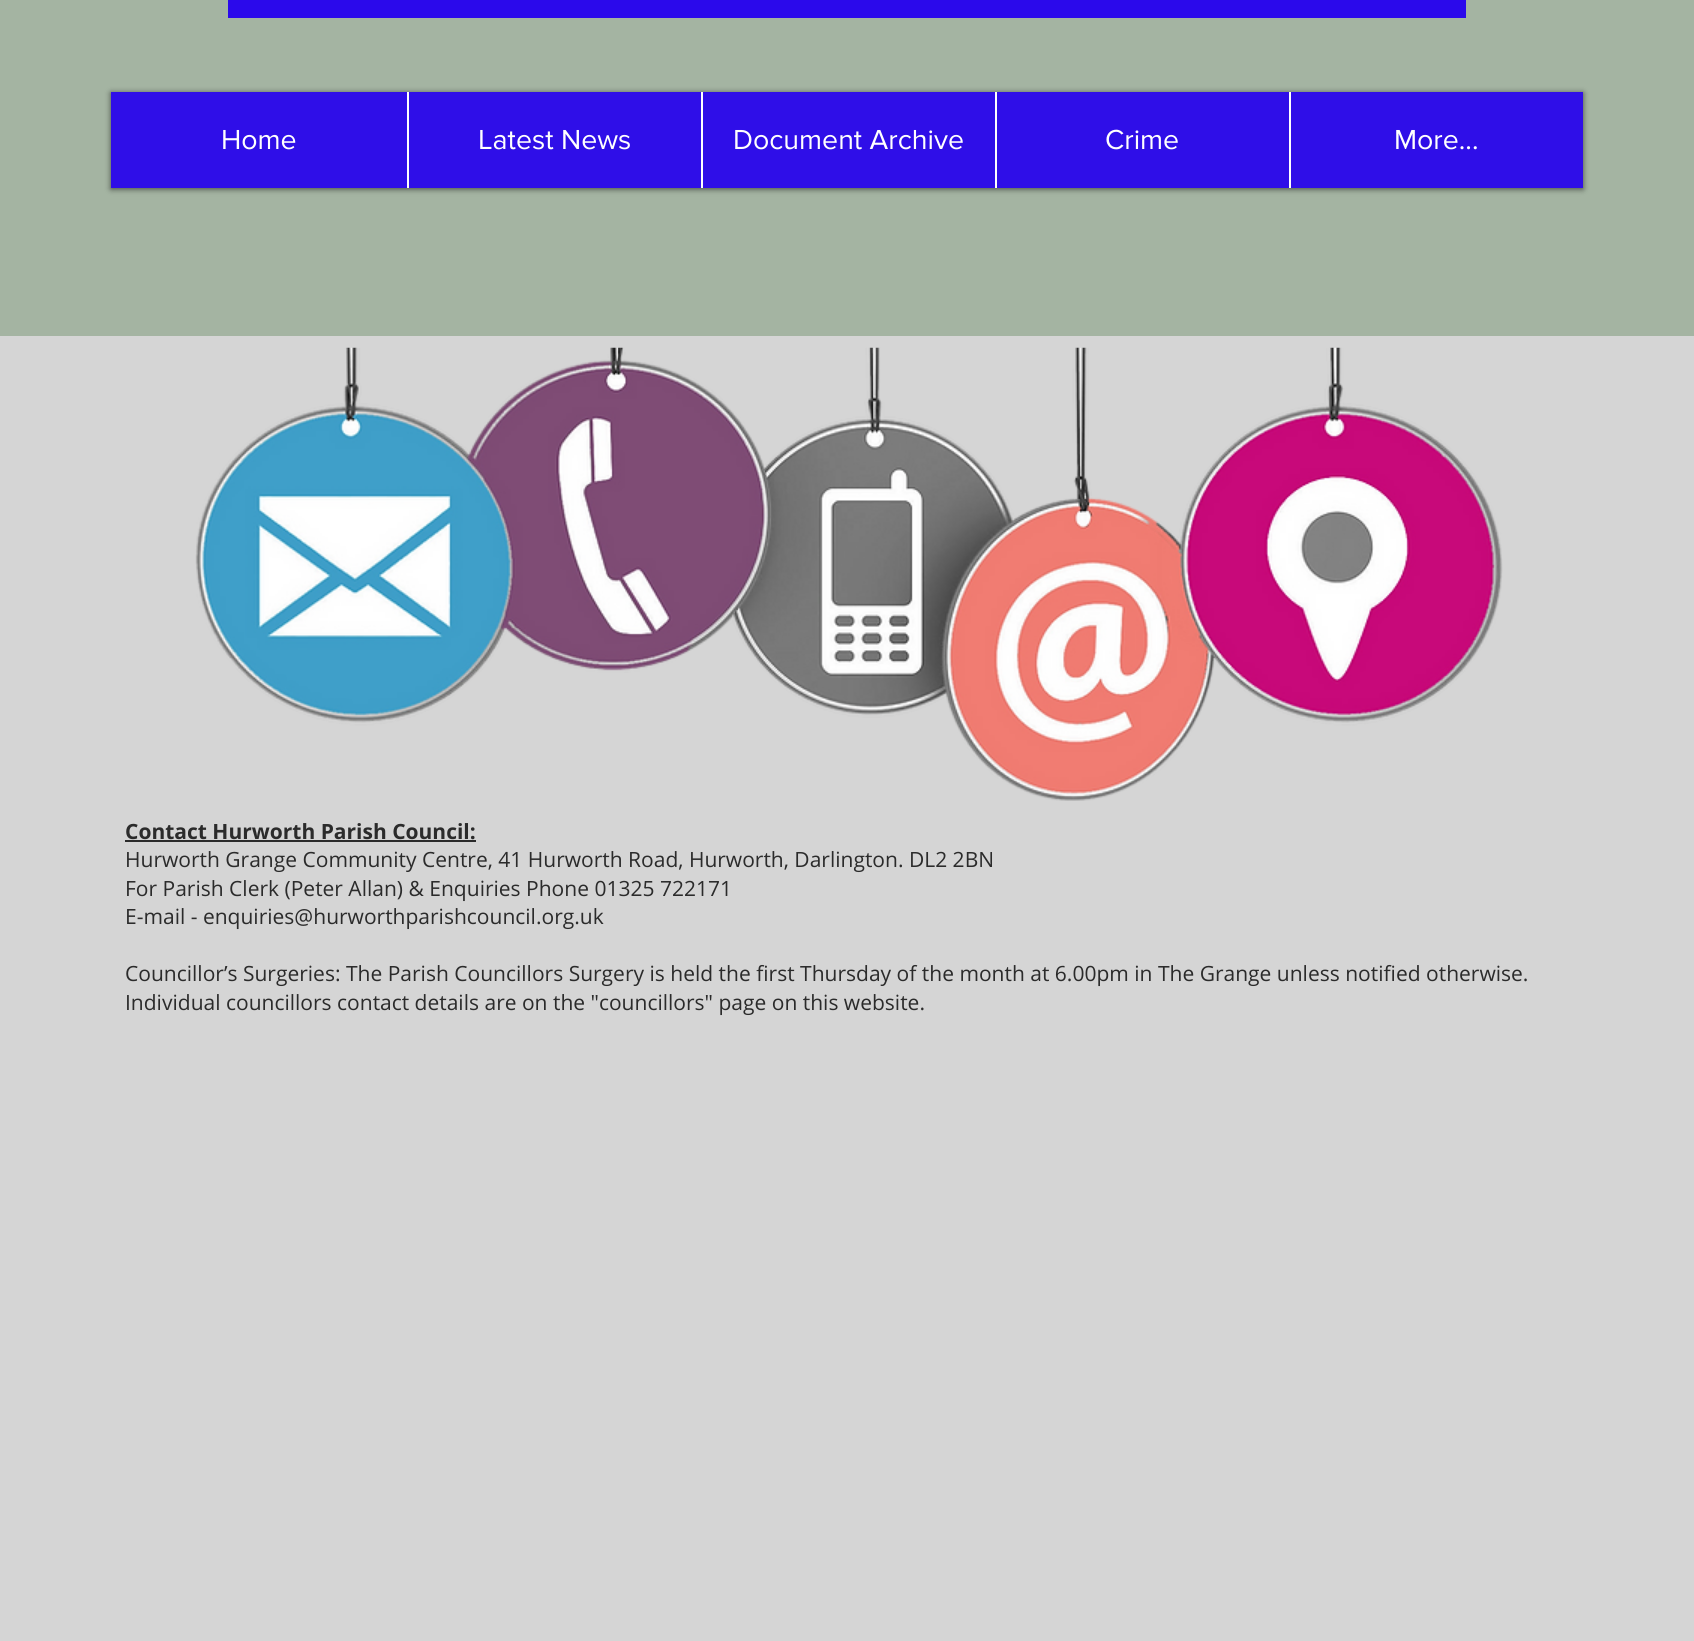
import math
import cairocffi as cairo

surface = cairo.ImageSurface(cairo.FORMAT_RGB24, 1694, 1641)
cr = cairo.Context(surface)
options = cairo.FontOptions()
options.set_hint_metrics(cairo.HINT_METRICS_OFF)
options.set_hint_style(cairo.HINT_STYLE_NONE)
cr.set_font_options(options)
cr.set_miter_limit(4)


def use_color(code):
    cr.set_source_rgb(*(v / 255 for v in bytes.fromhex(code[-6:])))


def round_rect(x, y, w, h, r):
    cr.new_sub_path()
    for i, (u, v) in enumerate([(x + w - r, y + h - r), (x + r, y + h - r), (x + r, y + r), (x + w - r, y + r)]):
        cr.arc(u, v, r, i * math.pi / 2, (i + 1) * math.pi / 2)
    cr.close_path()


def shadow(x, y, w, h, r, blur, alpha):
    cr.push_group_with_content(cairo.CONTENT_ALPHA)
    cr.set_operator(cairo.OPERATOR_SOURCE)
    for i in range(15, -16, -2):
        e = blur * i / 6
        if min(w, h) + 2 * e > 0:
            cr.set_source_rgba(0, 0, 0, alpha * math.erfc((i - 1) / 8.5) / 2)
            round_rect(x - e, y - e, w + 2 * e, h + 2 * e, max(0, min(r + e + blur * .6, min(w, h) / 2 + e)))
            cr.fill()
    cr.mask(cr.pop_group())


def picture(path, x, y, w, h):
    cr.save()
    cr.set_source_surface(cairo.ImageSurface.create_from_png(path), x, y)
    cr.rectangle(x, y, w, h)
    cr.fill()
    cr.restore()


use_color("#d5d5d5")
cr.paint()
use_color("#a4b4a2")
cr.rectangle(0, 0, 1694, 336)
cr.fill()
use_color("#2b09eb")
cr.rectangle(228, 0, 1238, 18)
cr.fill()
use_color("#000000")
shadow(111, 93, 1472, 96, 0, 3, 0.6)
use_color("#2f0ee8")
cr.rectangle(111, 92, 1472, 96)
cr.fill()
cr.select_font_face("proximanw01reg")
cr.set_font_size(28.5)
use_color("#ffffff")
cr.move_to(221, 149)
cr.show_text("Home")
cr.rectangle(407, 92, 2, 96)
cr.fill()
cr.move_to(478, 149)
cr.show_text("Latest News")
cr.rectangle(701, 92, 2, 96)
cr.fill()
cr.move_to(733, 149)
cr.show_text("Document Archive")
cr.rectangle(995, 92, 2, 96)
cr.fill()
cr.move_to(1105, 149)
cr.show_text("Crime")
cr.rectangle(1289, 92, 2, 96)
cr.fill()
cr.move_to(1394, 149)
cr.show_text("More...")
picture("img1.png", 195, 347, 1308, 454)
cr.select_font_face("Open Sans", cairo.FONT_SLANT_NORMAL, cairo.FONT_WEIGHT_BOLD)
cr.set_font_size(21)
use_color("#2b2b2b")
cr.move_to(125, 839)
cr.show_text("Contact Hurworth Parish Council:")
cr.rectangle(125, 840, 351, 2)
cr.fill()
cr.select_font_face("Open Sans")
cr.move_to(125, 867)
cr.show_text("Hurworth Grange Community Centre, 41 Hurworth Road, Hurworth, Darlington. DL2 2BN")
cr.move_to(125, 896)
cr.show_text("For Parish Clerk (Peter Allan) & Enquiries Phone 01325 722171")
cr.move_to(125, 924)
cr.show_text("E-mail - enquiries@hurworthparishcouncil.org.uk")
cr.move_to(125, 981)
cr.show_text("Councillor’s Surgeries: The Parish Councillors Surgery is held the first Thursday of the month at 6.00pm in The Grange unless notified otherwise.")
cr.move_to(125, 1010)
cr.show_text("Individual councillors contact details are on the \"councillors\" page on this website.")
surface.write_to_png("result.png")
